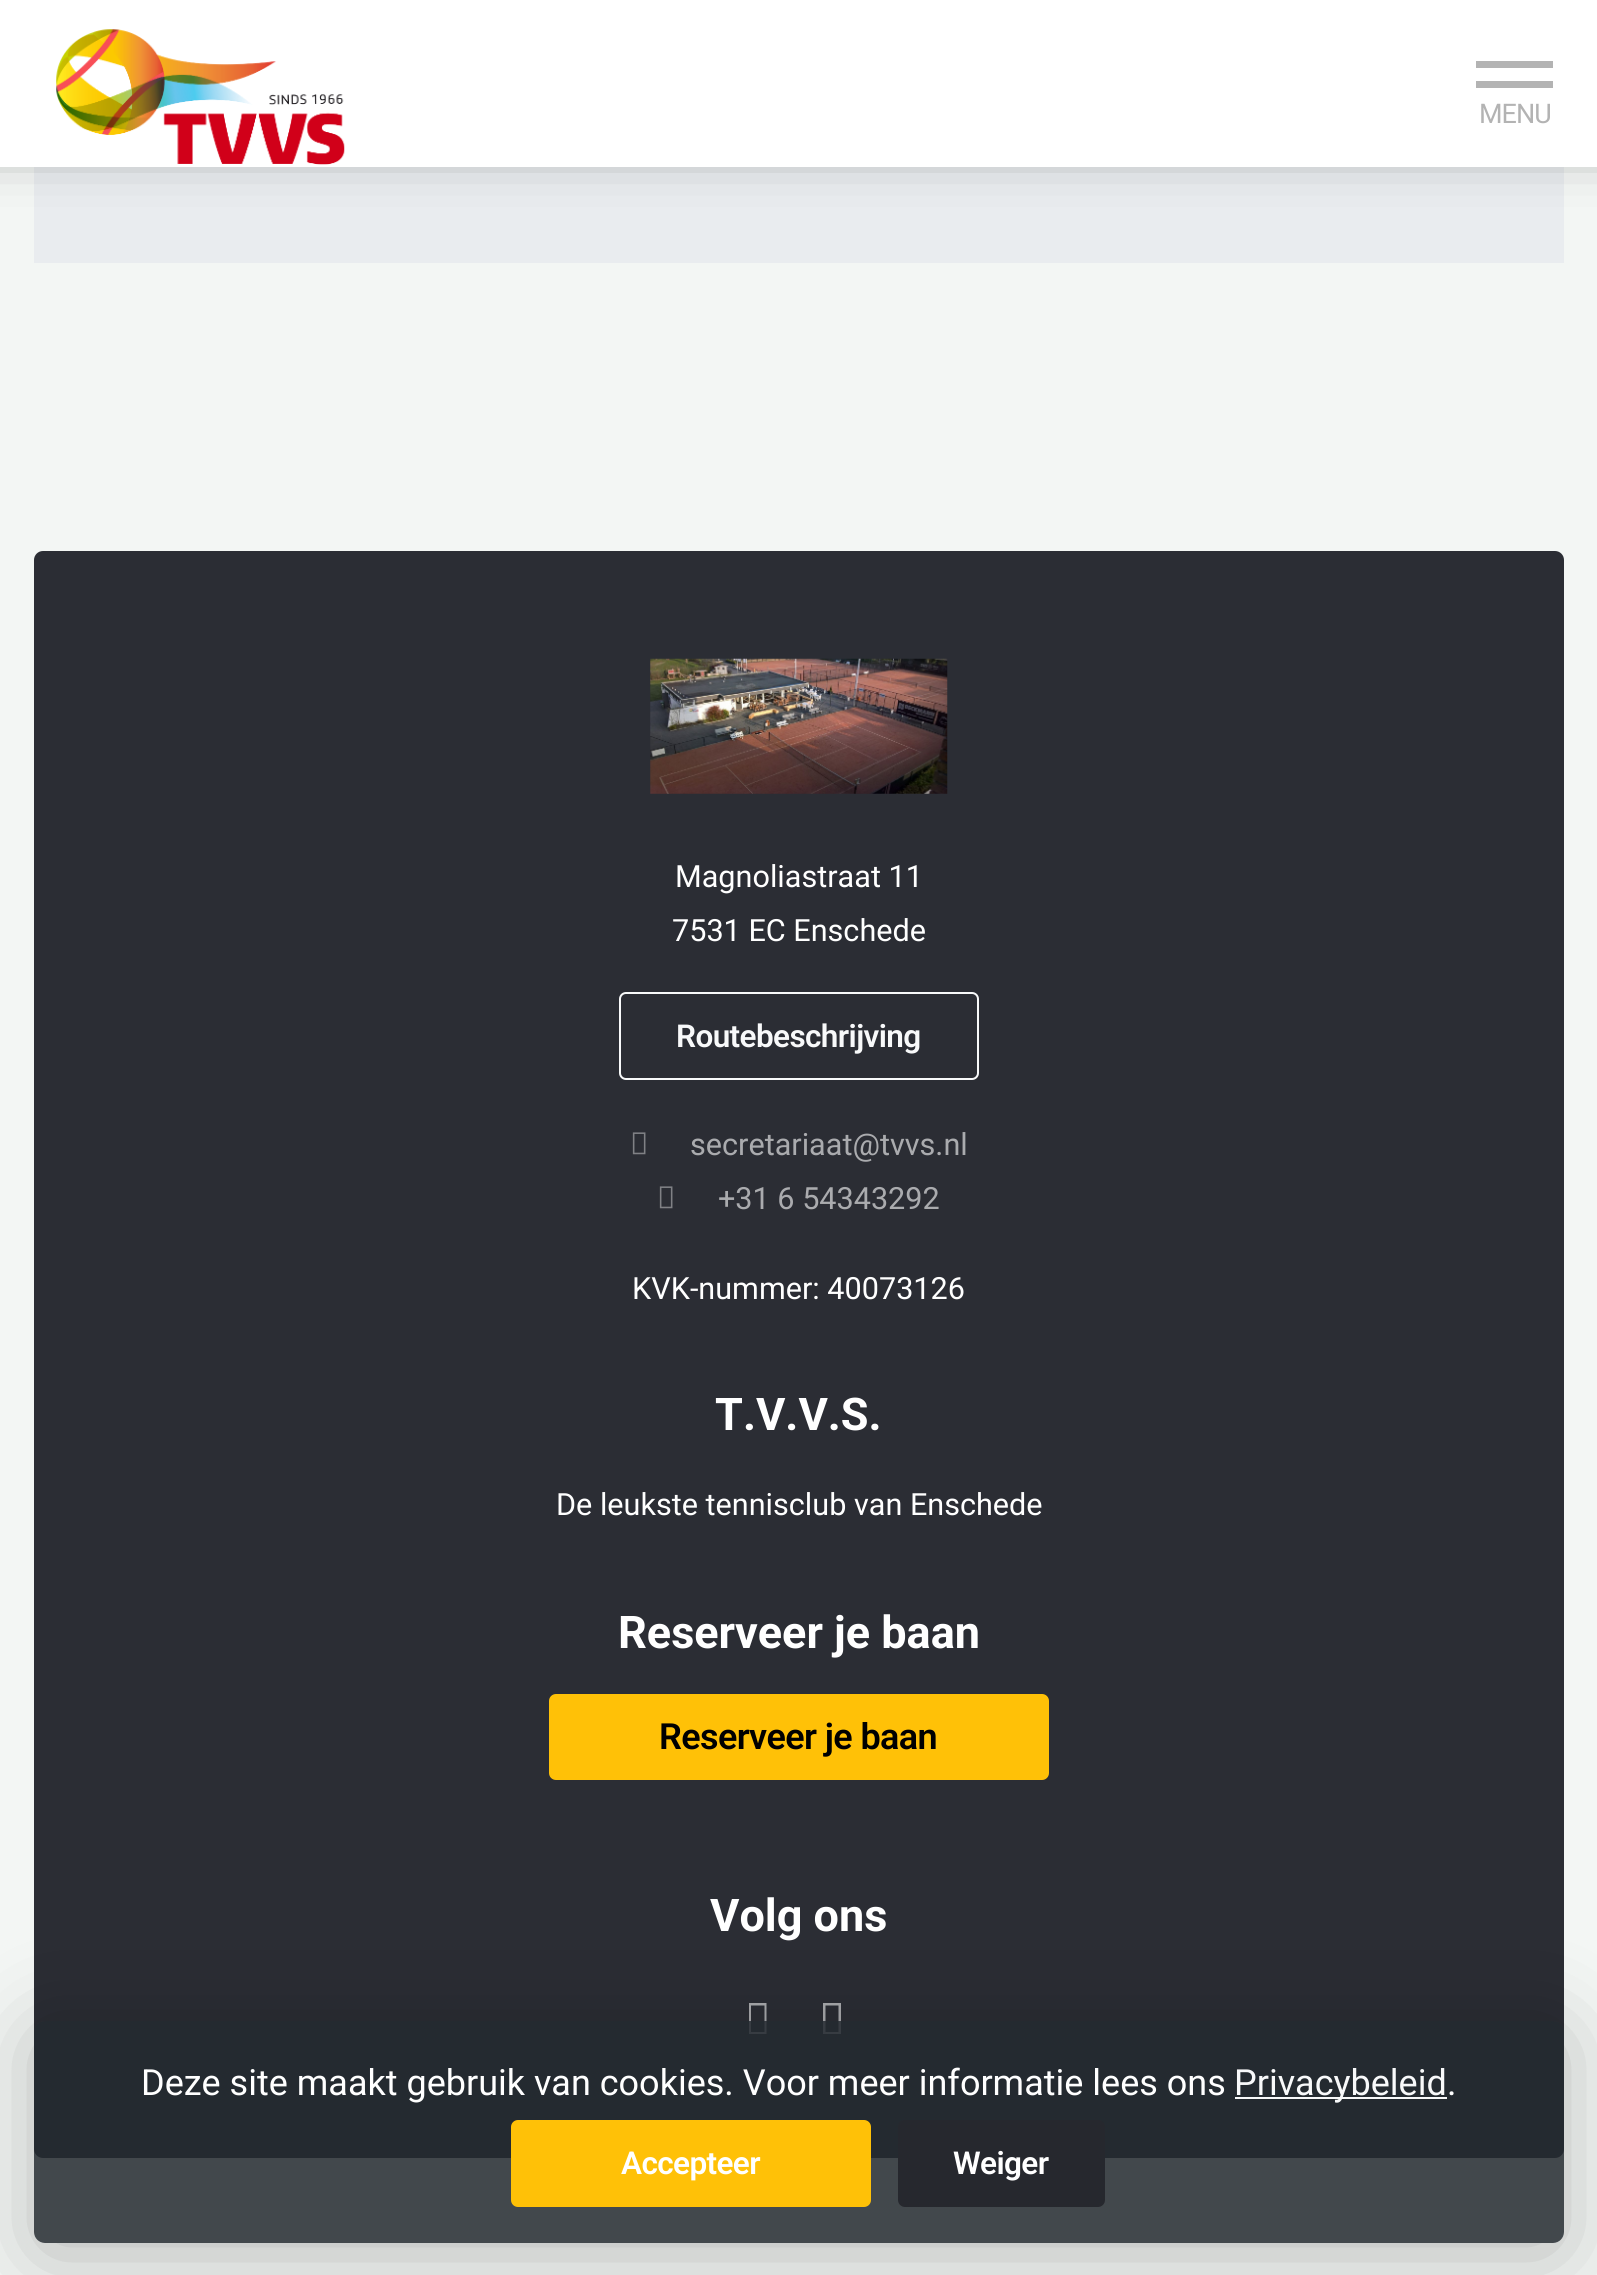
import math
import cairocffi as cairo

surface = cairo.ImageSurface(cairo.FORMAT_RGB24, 1597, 2275)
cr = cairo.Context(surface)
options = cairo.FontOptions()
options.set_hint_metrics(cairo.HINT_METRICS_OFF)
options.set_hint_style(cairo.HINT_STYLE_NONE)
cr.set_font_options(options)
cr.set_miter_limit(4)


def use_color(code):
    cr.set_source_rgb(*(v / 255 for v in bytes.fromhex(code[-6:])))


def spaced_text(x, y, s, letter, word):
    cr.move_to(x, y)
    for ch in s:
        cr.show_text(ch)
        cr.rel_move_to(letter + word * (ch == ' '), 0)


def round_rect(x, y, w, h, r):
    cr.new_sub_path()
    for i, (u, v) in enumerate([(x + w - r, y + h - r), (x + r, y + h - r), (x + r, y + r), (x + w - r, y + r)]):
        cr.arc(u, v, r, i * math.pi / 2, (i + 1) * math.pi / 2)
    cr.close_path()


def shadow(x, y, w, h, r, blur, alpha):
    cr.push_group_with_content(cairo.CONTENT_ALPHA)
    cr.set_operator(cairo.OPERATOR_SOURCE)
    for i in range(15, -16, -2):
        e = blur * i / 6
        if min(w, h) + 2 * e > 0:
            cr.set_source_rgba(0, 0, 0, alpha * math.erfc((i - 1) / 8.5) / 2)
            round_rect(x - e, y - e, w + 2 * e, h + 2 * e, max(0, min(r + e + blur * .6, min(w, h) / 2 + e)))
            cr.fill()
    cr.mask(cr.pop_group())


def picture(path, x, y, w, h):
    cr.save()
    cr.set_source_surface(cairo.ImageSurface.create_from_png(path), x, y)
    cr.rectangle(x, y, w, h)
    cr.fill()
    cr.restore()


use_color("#f3f6f4")
cr.paint()
use_color("#e9ecef")
cr.rectangle(34, 167, 1530, 96)
cr.fill()
use_color("#000000")
shadow(-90, -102, 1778, 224, 0, 34, 1)
use_color("#ffffff")
cr.rectangle(0, 0, 1597, 167)
cr.fill()
picture("img1.png", 56, 29, 289, 136)
use_color("#b3b3b3")
cr.rectangle(1476, 61, 77, 7)
cr.fill()
cr.rectangle(1476, 81, 77, 7)
cr.fill()
cr.select_font_face("Roboto")
cr.set_font_size(27)
spaced_text(1479, 123, "MENU", -1, 0)
use_color("#2b2d34")
round_rect(34, 551, 1530, 1607, 9)
cr.fill()
picture("img2.png", 650, 658, 298, 136)
cr.set_font_size(30.6)
use_color("#ffffff")
cr.move_to(675, 887)
cr.show_text("Magnoliastraat 11")
cr.move_to(672, 941)
cr.show_text("7531 EC Enschede")
round_rect(620, 993, 358, 86, 6)
use_color("#f8f9fa")
cr.stroke()
cr.select_font_face("Roboto SemiBold")
cr.set_font_size(31.5)
spaced_text(676, 1047, "Routebeschrijving", -0.6, 0)
picture("img3.png", 632, 1132, 14, 23)
cr.select_font_face("Roboto")
cr.set_font_size(30.6)
use_color("#aaabae")
cr.move_to(690, 1155)
cr.show_text("secretariaat@tvvs.nl")
picture("img3.png", 659, 1186, 14, 23)
cr.move_to(718, 1209)
cr.show_text("+31 6 54343292")
use_color("#ffffff")
cr.move_to(632, 1299)
cr.show_text("KVK-nummer: 40073126")
cr.select_font_face("Roboto", cairo.FONT_SLANT_NORMAL, cairo.FONT_WEIGHT_BOLD)
cr.set_font_size(45)
cr.move_to(715, 1430)
cr.show_text("T.V.V.S.")
cr.select_font_face("Roboto")
cr.set_font_size(30.6)
cr.move_to(556, 1515)
cr.show_text("De leukste tennisclub van Enschede")
cr.select_font_face("Roboto", cairo.FONT_SLANT_NORMAL, cairo.FONT_WEIGHT_BOLD)
cr.set_font_size(45)
cr.move_to(618, 1648)
cr.show_text("Reserveer je baan")
use_color("#ffc107")
round_rect(550, 1695, 498, 84, 6)
cr.fill_preserve()
cr.stroke()
cr.select_font_face("Roboto SemiBold")
cr.set_font_size(36)
use_color("#000000")
spaced_text(659, 1749, "Reserveer je baan", -0.6, 0)
cr.select_font_face("Roboto", cairo.FONT_SLANT_NORMAL, cairo.FONT_WEIGHT_BOLD)
cr.set_font_size(45)
use_color("#ffffff")
cr.move_to(710, 1931)
cr.show_text("Volg ons")
use_color("#aaabae")
cr.new_path()
cr.move_to(749, 2034)
cr.line_to(749, 2003)
cr.line_to(766.5, 2003)
cr.line_to(766.5, 2034)
cr.close_path()
cr.move_to(751, 2032)
cr.line_to(764.5, 2032)
cr.line_to(764.5, 2005.5)
cr.line_to(751, 2005.5)
cr.close_path()
cr.fill()
cr.new_path()
cr.move_to(823, 2034)
cr.line_to(823, 2003)
cr.line_to(841, 2003)
cr.line_to(841, 2034)
cr.close_path()
cr.move_to(825.5, 2032)
cr.line_to(838.5, 2032)
cr.line_to(838.5, 2005.5)
cr.line_to(825.5, 2005.5)
cr.close_path()
cr.fill()
cr.save()
cr.set_fill_rule(cairo.FILL_RULE_EVEN_ODD)
cr.new_path()
cr.move_to(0, 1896)
cr.line_to(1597, 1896)
cr.line_to(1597, 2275)
cr.line_to(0, 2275)
cr.close_path()
cr.move_to(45, 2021)
cr.line_to(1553, 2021)
cr.curve_to(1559, 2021, 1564, 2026, 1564, 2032)
cr.line_to(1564, 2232)
cr.curve_to(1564, 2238, 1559, 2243, 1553, 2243)
cr.line_to(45, 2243)
cr.curve_to(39, 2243, 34, 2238, 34, 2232)
cr.line_to(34, 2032)
cr.curve_to(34, 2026, 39, 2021, 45, 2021)
cr.close_path()
cr.clip()
use_color("#000000")
shadow(34, 2032, 1530, 223, 11, 45, 0.25)
cr.restore()
cr.set_source_rgba(0.141, 0.165, 0.188, 0.85)
round_rect(34, 2021, 1530, 222, 11)
cr.fill()
cr.select_font_face("Roboto")
cr.set_font_size(36)
use_color("#ffffff")
cr.move_to(141, 2095)
cr.show_text("Deze site maakt gebruik van cookies. Voor meer informatie lees ons")
use_color("#f8f9fa")
cr.rectangle(1235, 2097, 212, 2)
cr.fill()
cr.move_to(1234, 2095)
cr.show_text("Privacybeleid")
use_color("#ffffff")
cr.move_to(1447, 2095)
cr.show_text(".")
use_color("#ffc107")
round_rect(512, 2121, 358, 85, 6)
cr.fill_preserve()
cr.stroke()
cr.select_font_face("Roboto SemiBold")
cr.set_font_size(31.5)
use_color("#ffffff")
spaced_text(621, 2174, "Accepteer", -0.6, 0)
use_color("#26282e")
round_rect(899, 2121, 205, 85, 6)
cr.fill_preserve()
cr.stroke()
use_color("#ffffff")
spaced_text(953, 2174, "Weiger", -0.6, 0)
surface.write_to_png("result.png")
